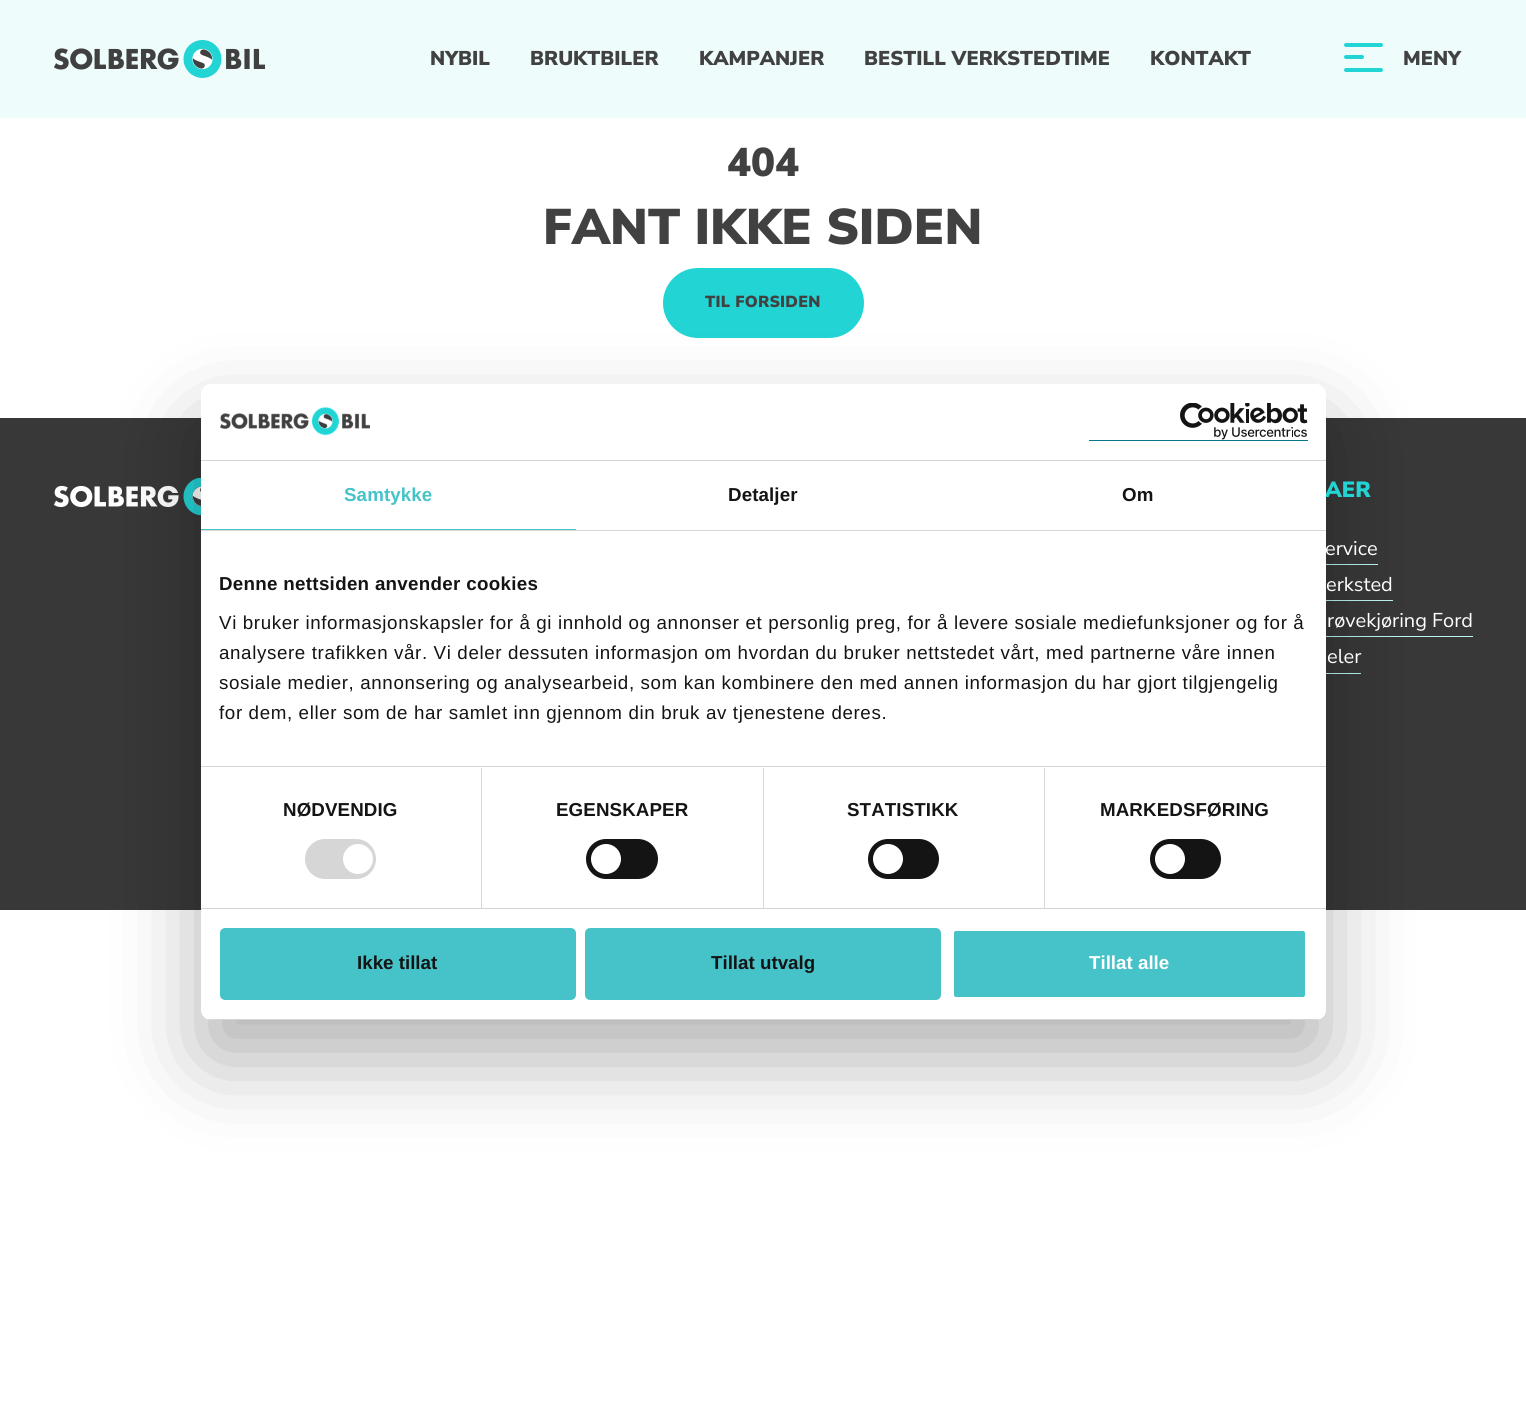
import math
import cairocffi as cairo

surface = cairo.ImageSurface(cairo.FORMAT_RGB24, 1526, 1402)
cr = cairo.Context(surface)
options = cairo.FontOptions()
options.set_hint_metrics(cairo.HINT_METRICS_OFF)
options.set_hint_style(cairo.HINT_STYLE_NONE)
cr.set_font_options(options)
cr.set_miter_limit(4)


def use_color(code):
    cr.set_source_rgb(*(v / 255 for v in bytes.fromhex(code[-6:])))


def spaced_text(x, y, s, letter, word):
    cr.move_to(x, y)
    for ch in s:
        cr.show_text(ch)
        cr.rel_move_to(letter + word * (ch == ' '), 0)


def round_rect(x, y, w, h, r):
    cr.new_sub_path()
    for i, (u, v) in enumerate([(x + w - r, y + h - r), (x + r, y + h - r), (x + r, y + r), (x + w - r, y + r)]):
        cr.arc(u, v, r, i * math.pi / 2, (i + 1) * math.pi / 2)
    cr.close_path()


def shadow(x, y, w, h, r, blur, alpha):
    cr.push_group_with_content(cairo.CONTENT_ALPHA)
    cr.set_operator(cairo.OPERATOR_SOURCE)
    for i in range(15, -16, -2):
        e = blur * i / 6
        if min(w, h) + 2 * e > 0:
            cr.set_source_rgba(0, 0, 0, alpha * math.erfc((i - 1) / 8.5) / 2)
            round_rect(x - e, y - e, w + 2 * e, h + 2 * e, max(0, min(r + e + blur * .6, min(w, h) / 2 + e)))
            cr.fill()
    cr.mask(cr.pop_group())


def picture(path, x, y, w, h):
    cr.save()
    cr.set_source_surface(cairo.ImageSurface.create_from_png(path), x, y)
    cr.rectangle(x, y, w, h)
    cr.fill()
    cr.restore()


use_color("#ffffff")
cr.paint()
use_color("#effcfc")
cr.rectangle(0, 0, 1526, 118)
cr.fill()
picture("img1.png", 54, 40, 211, 38)
cr.select_font_face("Nunito Sans Black")
cr.set_font_size(20)
use_color("#414141")
cr.move_to(430, 65)
cr.show_text("NYBIL")
cr.move_to(530, 65)
cr.show_text("BRUKTBILER")
cr.move_to(699, 65)
cr.show_text("KAMPANJER")
cr.move_to(864, 65)
cr.show_text("BESTILL VERKSTEDTIME")
cr.move_to(1150, 65)
cr.show_text("KONTAKT")
use_color("#23d4d5")
round_rect(1344, 43, 39, 4, 2)
cr.fill()
round_rect(1344, 55, 20, 4, 2)
cr.fill()
round_rect(1344, 68, 39, 4, 2)
cr.fill()
use_color("#414141")
cr.move_to(1403, 65)
cr.show_text("MENY")
cr.set_font_size(40)
cr.move_to(727, 176)
cr.show_text("404")
cr.set_font_size(50)
cr.move_to(543, 244)
cr.show_text("FANT IKKE SIDEN")
use_color("#23d4d5")
round_rect(664.5, 269.5, 198, 67, 33.5)
cr.fill_preserve()
cr.set_line_width(3)
cr.stroke()
cr.set_font_size(16)
use_color("#414141")
spaced_text(705, 307, "TIL FORSIDEN", 0.25, 0)
use_color("#383838")
cr.rectangle(0, 418, 1526, 492)
cr.fill()
picture("img4.png", 54, 478, 147, 37)
use_color("#bbf4f4")
cr.rectangle(1326, 564, 52, 1)
cr.fill()
cr.rectangle(1326, 600, 67, 1)
cr.fill()
cr.rectangle(1326, 636, 147, 1)
cr.fill()
cr.rectangle(1326, 673, 35, 1)
cr.fill()
use_color("#000000")
shadow(201, 424, 1125, 636, 10, 42.5, 0.3)
cr.set_font_size(22)
use_color("#23d4d5")
cr.move_to(1325, 497)
cr.show_text("AER")
use_color("#ffffff")
round_rect(201, 384, 1125, 636, 10)
cr.fill()
use_color("#d6d6d6")
cr.rectangle(201, 460, 1125, 1)
cr.fill()
picture("img2.png", 220, 407, 150, 29)
use_color("#06768c")
cr.rectangle(1089, 440, 219, 1)
cr.fill()
picture("img3.png", 1180, 403, 128, 37)
use_color("#d6d6d6")
cr.rectangle(201, 530, 1125, 1)
cr.fill()
use_color("#46c2c9")
cr.rectangle(201, 529, 375, 1)
cr.fill()
cr.select_font_face("Liberation Sans", cairo.FONT_SLANT_NORMAL, cairo.FONT_WEIGHT_BOLD)
cr.set_font_size(18.75)
spaced_text(344, 501, "Samtykke", 0.1, 0)
use_color("#141414")
spaced_text(728, 501, "Detaljer", 0.1, 0)
spaced_text(1122, 501, "Om", 0.1, 0)
use_color("#d6d6d6")
cr.rectangle(201, 766, 1125, 1)
cr.fill()
use_color("#141414")
spaced_text(219, 590, "Denne nettsiden anvender cookies", 0.3, 0)
cr.select_font_face("Liberation Sans")
spaced_text(219, 629, "Vi bruker informasjonskapsler for å gi innhold og annonser et personlig preg, for å levere sosiale mediefunksjoner og for å", 0.62, 0)
spaced_text(219, 659, "analysere trafikken vår. Vi deler dessuten informasjon om hvordan du bruker nettstedet vårt, med partnerne våre innen", 0.62, 0)
spaced_text(219, 689, "sosiale medier, annonsering og analysearbeid, som kan kombinere den med annen informasjon du har gjort tilgjengelig", 0.62, 0)
spaced_text(219, 719, "for dem, eller som de har samlet inn gjennom din bruk av tjenestene deres.", 0.62, 0)
use_color("#d6d6d6")
cr.rectangle(201, 908, 1125, 1)
cr.fill()
cr.rectangle(481, 768, 1, 140)
cr.fill()
cr.select_font_face("Liberation Sans", cairo.FONT_SLANT_NORMAL, cairo.FONT_WEIGHT_BOLD)
use_color("#141414")
spaced_text(283, 816, "NØDVENDIG", 0.1, 0)
use_color("#d6d6d6")
round_rect(305, 839, 71, 40, 20)
cr.fill()
use_color("#ffffff")
cr.arc(358, 859, 15, 0, 2 * math.pi)
cr.fill()
use_color("#d6d6d6")
cr.rectangle(763, 768, 1, 140)
cr.fill()
use_color("#141414")
spaced_text(556, 816, "EGENSKAPER", 0.1, 0)
round_rect(586, 839, 72, 40, 20)
cr.fill()
use_color("#ffffff")
cr.arc(606, 859, 15, 0, 2 * math.pi)
cr.fill()
use_color("#d6d6d6")
cr.rectangle(1044, 768, 1, 140)
cr.fill()
use_color("#141414")
spaced_text(847, 816, "STATISTIKK", 0.1, 0)
round_rect(868, 839, 71, 40, 20)
cr.fill()
use_color("#ffffff")
cr.arc(888, 859, 15, 0, 2 * math.pi)
cr.fill()
use_color("#141414")
spaced_text(1100, 816, "MARKEDSFØRING", 0.1, 0)
round_rect(1150, 839, 71, 40, 20)
cr.fill()
use_color("#ffffff")
cr.arc(1170, 859, 15, 0, 2 * math.pi)
cr.fill()
cr.save()
round_rect(201, 384, 1125, 636, 10)
cr.clip()
use_color("#d6d6d6")
cr.rectangle(201, 1019, 1125, 1)
cr.fill()
cr.restore()
use_color("#46c2c9")
round_rect(221.5, 929.5, 353, 69, 3.5)
cr.fill_preserve()
cr.stroke()
use_color("#141414")
cr.move_to(357, 969)
cr.show_text("Ikke tillat")
use_color("#46c2c9")
round_rect(586.5, 929.5, 353, 69, 3.5)
cr.fill_preserve()
cr.stroke()
use_color("#141414")
cr.move_to(711, 969)
cr.show_text("Tillat utvalg")
use_color("#46c2c9")
round_rect(952.5, 929.5, 354, 69, 3.5)
cr.fill_preserve()
use_color("#ffffff")
cr.stroke()
cr.move_to(1089, 969)
cr.show_text("Tillat alle")
cr.select_font_face("Nunito Sans")
cr.set_font_size(20)
cr.move_to(1325, 555)
cr.show_text("ervice")
cr.move_to(1326, 591)
cr.show_text("erksted")
cr.move_to(1327, 627)
cr.show_text("røvekjøring Ford")
cr.move_to(1327, 663)
cr.show_text("eler")
surface.write_to_png("result.png")
